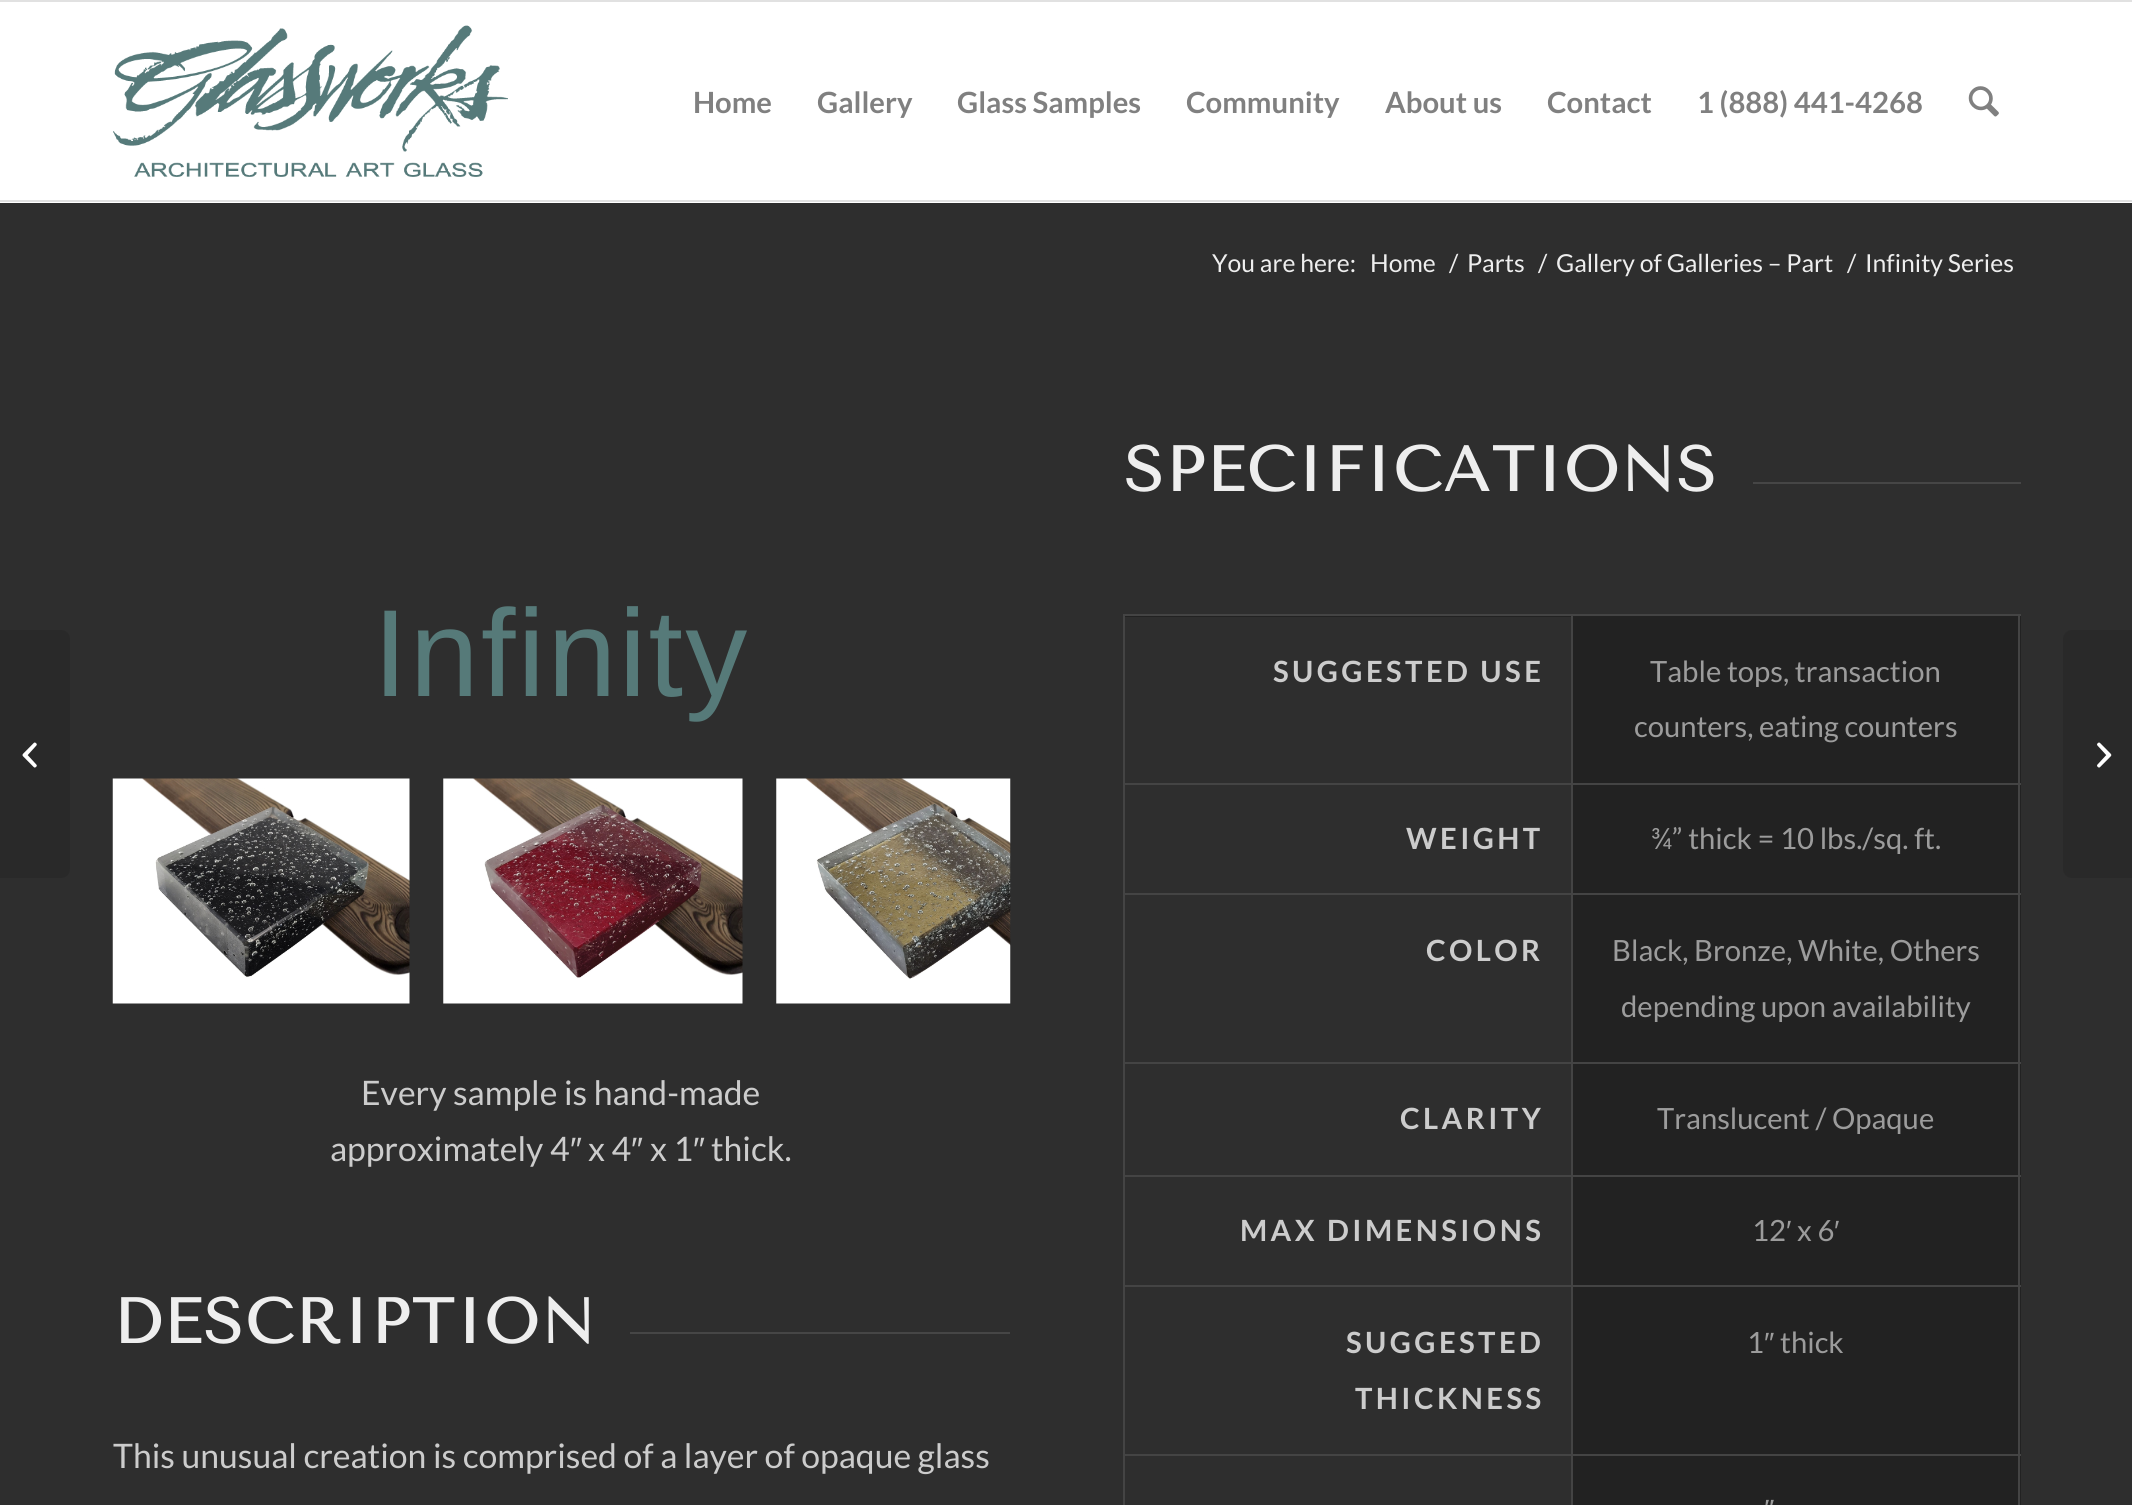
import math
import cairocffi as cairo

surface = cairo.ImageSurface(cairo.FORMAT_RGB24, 2132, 1505)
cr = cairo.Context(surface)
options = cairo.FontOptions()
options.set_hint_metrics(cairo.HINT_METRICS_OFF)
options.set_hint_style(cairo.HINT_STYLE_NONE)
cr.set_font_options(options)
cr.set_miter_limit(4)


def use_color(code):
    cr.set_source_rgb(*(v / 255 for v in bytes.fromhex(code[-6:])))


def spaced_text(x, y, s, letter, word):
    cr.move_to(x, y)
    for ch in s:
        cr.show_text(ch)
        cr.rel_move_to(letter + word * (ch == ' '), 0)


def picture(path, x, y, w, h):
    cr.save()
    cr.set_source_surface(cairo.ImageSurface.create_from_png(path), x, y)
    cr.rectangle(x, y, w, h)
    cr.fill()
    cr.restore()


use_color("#2e2e2e")
cr.paint()
use_color("#ffffff")
cr.rectangle(0, 2, 2132, 201)
cr.fill()
use_color("#e1e1e1")
cr.rectangle(0, 0, 2132, 2)
cr.fill()
cr.rectangle(0, 200, 2132, 2)
cr.fill()
picture("img1.png", 113, 25, 395, 152)
cr.select_font_face("Lato", cairo.FONT_SLANT_NORMAL, cairo.FONT_WEIGHT_BOLD)
cr.set_font_size(29.25)
use_color("#808080")
cr.move_to(693, 113)
cr.show_text("Home")
cr.move_to(817, 113)
cr.show_text("Gallery")
cr.move_to(957, 113)
cr.show_text("Glass Samples")
cr.move_to(1186, 113)
cr.show_text("Community")
cr.move_to(1385, 113)
cr.show_text("About us")
cr.move_to(1547, 113)
cr.show_text("Contact")
cr.move_to(1697, 113)
cr.show_text("1 (888) 441-4268")
picture("img2.png", 1968, 86, 31, 31)
use_color("#292929")
cr.new_path()
cr.move_to(0, 630)
cr.line_to(61, 630)
cr.curve_to(66, 630, 70, 634, 70, 639)
cr.line_to(70, 869)
cr.curve_to(70, 874, 66, 878, 61, 878)
cr.line_to(0, 878)
cr.close_path()
cr.fill()
picture("img3.png", 22, 742, 15, 26)
cr.select_font_face("Lato")
cr.set_font_size(24.75)
use_color("#eeeeee")
cr.move_to(1212, 272)
cr.show_text("You are here:")
cr.move_to(1370, 272)
cr.show_text("Home")
cr.move_to(1449, 272)
cr.show_text("/")
cr.move_to(1467, 272)
cr.show_text("Parts")
cr.move_to(1538, 272)
cr.show_text("/")
cr.move_to(1556, 272)
cr.show_text("Gallery of Galleries – Part")
cr.move_to(1847, 272)
cr.show_text("/")
cr.move_to(1865, 272)
cr.show_text("Infinity Series")
cr.select_font_face("Liberation Sans")
cr.set_font_size(124)
use_color("#567a79")
spaced_text(373, 696, "Infinity", 2.25, 0)
picture("img4.png", 112, 778, 298, 226)
picture("img5.png", 443, 778, 300, 226)
picture("img6.png", 776, 778, 235, 226)
cr.select_font_face("Lato")
cr.set_font_size(33.75)
use_color("#cccccc")
cr.move_to(361, 1105)
cr.show_text("Every sample is hand-made")
cr.move_to(330, 1161)
cr.show_text("approximately 4")
cr.select_font_face("Liberation Sans")
cr.move_to(570, 1161)
cr.show_text("″")
cr.select_font_face("Lato")
cr.move_to(588, 1161)
cr.show_text("x 4")
cr.select_font_face("Liberation Sans")
cr.move_to(631, 1161)
cr.show_text("″")
cr.select_font_face("Lato")
cr.move_to(650, 1161)
cr.show_text("x 1")
cr.select_font_face("Liberation Sans")
cr.move_to(693, 1161)
cr.show_text("″")
cr.select_font_face("Lato")
cr.move_to(711, 1161)
cr.show_text("thick.")
cr.select_font_face("Tenor Sans", cairo.FONT_SLANT_NORMAL, cairo.FONT_WEIGHT_BOLD)
cr.set_font_size(63)
use_color("#eeeeee")
spaced_text(113, 1343, "DESCRIPTION", 2.25, 0)
use_color("#464646")
cr.rectangle(630, 1332, 380, 2)
cr.fill()
cr.select_font_face("Lato")
cr.set_font_size(33.75)
use_color("#cccccc")
cr.move_to(113, 1468)
cr.show_text("This unusual creation is comprised of a layer of opaque glass")
cr.select_font_face("Tenor Sans", cairo.FONT_SLANT_NORMAL, cairo.FONT_WEIGHT_BOLD)
cr.set_font_size(63)
use_color("#eeeeee")
spaced_text(1124, 491, "SPECIFICATIONS", 2.25, 0)
use_color("#464646")
cr.rectangle(1753, 482, 268, 2)
cr.fill()
use_color("#222222")
cr.rectangle(1125, 616, 896, 889)
cr.fill()
use_color("#2e2e2e")
cr.rectangle(1125, 617, 446, 166)
cr.fill()
use_color("#444444")
cr.rectangle(1123, 614, 898, 2)
cr.fill()
cr.rectangle(2018, 783, 2, 722)
cr.fill()
cr.rectangle(2018, 614, 2, 171)
cr.fill()
cr.rectangle(1571, 1454, 2, 51)
cr.fill()
cr.rectangle(1571, 1454, 450, 2)
cr.fill()
cr.rectangle(1571, 1285, 2, 171)
cr.fill()
cr.rectangle(1571, 1285, 450, 2)
cr.fill()
cr.rectangle(1571, 1175, 2, 112)
cr.fill()
cr.rectangle(1571, 1175, 450, 2)
cr.fill()
cr.rectangle(1571, 1062, 2, 115)
cr.fill()
cr.rectangle(1571, 1062, 450, 2)
cr.fill()
cr.rectangle(1571, 893, 2, 171)
cr.fill()
cr.rectangle(1571, 893, 450, 2)
cr.fill()
cr.rectangle(1571, 783, 2, 113)
cr.fill()
cr.rectangle(1571, 783, 450, 2)
cr.fill()
cr.rectangle(1571, 614, 2, 171)
cr.fill()
use_color("#2e2e2e")
cr.rectangle(1125, 785, 446, 277)
cr.fill()
use_color("#444444")
cr.rectangle(1123, 1454, 2, 51)
cr.fill()
cr.rectangle(1123, 1454, 450, 2)
cr.fill()
cr.rectangle(1123, 1285, 2, 171)
cr.fill()
cr.rectangle(1123, 1285, 450, 2)
cr.fill()
cr.rectangle(1123, 1175, 2, 112)
cr.fill()
cr.rectangle(1123, 1175, 450, 2)
cr.fill()
cr.rectangle(1123, 1062, 2, 115)
cr.fill()
cr.rectangle(1123, 1062, 450, 2)
cr.fill()
cr.rectangle(1123, 893, 2, 171)
cr.fill()
cr.rectangle(1123, 893, 450, 2)
cr.fill()
cr.rectangle(1123, 783, 2, 113)
cr.fill()
cr.rectangle(1123, 783, 450, 2)
cr.fill()
cr.rectangle(1123, 614, 2, 171)
cr.fill()
cr.select_font_face("Lato", cairo.FONT_SLANT_NORMAL, cairo.FONT_WEIGHT_BOLD)
cr.set_font_size(29.25)
use_color("#cccccc")
spaced_text(1273, 682, "SUGGESTED USE", 3.4, 0)
cr.select_font_face("Lato")
use_color("#9c9c9c")
cr.move_to(1650, 682)
cr.show_text("Table tops, transaction")
cr.move_to(1634, 737)
cr.show_text("counters, eating counters")
cr.select_font_face("Lato", cairo.FONT_SLANT_NORMAL, cairo.FONT_WEIGHT_BOLD)
use_color("#cccccc")
spaced_text(1406, 849, "WEIGHT", 3.4, 0)
cr.select_font_face("Lato")
use_color("#9c9c9c")
cr.move_to(1651, 849)
cr.show_text("¾” thick = 10 lbs./sq. ft.")
cr.select_font_face("Lato", cairo.FONT_SLANT_NORMAL, cairo.FONT_WEIGHT_BOLD)
use_color("#cccccc")
spaced_text(1426, 961, "COLOR", 3.4, 0)
cr.select_font_face("Lato")
use_color("#9c9c9c")
cr.move_to(1612, 961)
cr.show_text("Black, Bronze, White, Others")
cr.move_to(1621, 1017)
cr.show_text("depending upon availability")
use_color("#2e2e2e")
cr.rectangle(1125, 1064, 446, 111)
cr.fill()
cr.select_font_face("Lato", cairo.FONT_SLANT_NORMAL, cairo.FONT_WEIGHT_BOLD)
use_color("#cccccc")
spaced_text(1400, 1129, "CLARITY", 3.4, 0)
cr.select_font_face("Lato")
use_color("#9c9c9c")
cr.move_to(1657, 1129)
cr.show_text("Translucent / Opaque")
use_color("#2e2e2e")
cr.rectangle(1125, 1177, 446, 108)
cr.fill()
cr.select_font_face("Lato", cairo.FONT_SLANT_NORMAL, cairo.FONT_WEIGHT_BOLD)
use_color("#cccccc")
spaced_text(1240, 1241, "MAX DIMENSIONS", 3.4, 0)
cr.select_font_face("Lato")
use_color("#9c9c9c")
cr.move_to(1752, 1241)
cr.show_text("12")
cr.select_font_face("Liberation Sans")
cr.move_to(1786, 1241)
cr.show_text("′")
cr.select_font_face("Lato")
cr.move_to(1797, 1241)
cr.show_text("x 6")
cr.select_font_face("Liberation Sans")
cr.move_to(1834, 1241)
cr.show_text("′")
use_color("#2e2e2e")
cr.rectangle(1125, 1287, 446, 167)
cr.fill()
cr.select_font_face("Lato", cairo.FONT_SLANT_NORMAL, cairo.FONT_WEIGHT_BOLD)
use_color("#cccccc")
spaced_text(1346, 1353, "SUGGESTED", 3.4, 0)
spaced_text(1355, 1409, "THICKNESS", 3.4, 0)
cr.select_font_face("Lato")
use_color("#9c9c9c")
cr.move_to(1747, 1353)
cr.show_text("1")
cr.select_font_face("Liberation Sans")
cr.move_to(1764, 1353)
cr.show_text("″")
cr.select_font_face("Lato")
cr.move_to(1780, 1353)
cr.show_text("thick")
use_color("#2e2e2e")
cr.rectangle(1125, 1456, 446, 49)
cr.fill()
cr.select_font_face("Liberation Sans")
use_color("#9c9c9c")
cr.move_to(1764, 1520)
cr.show_text("″")
use_color("#292929")
cr.new_path()
cr.move_to(2072, 630)
cr.line_to(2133, 630)
cr.line_to(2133, 878)
cr.line_to(2072, 878)
cr.curve_to(2067, 878, 2063, 874, 2063, 869)
cr.line_to(2063, 639)
cr.curve_to(2063, 634, 2067, 630, 2072, 630)
cr.close_path()
cr.fill()
picture("img7.png", 2097, 742, 15, 26)
surface.write_to_png("result.png")
